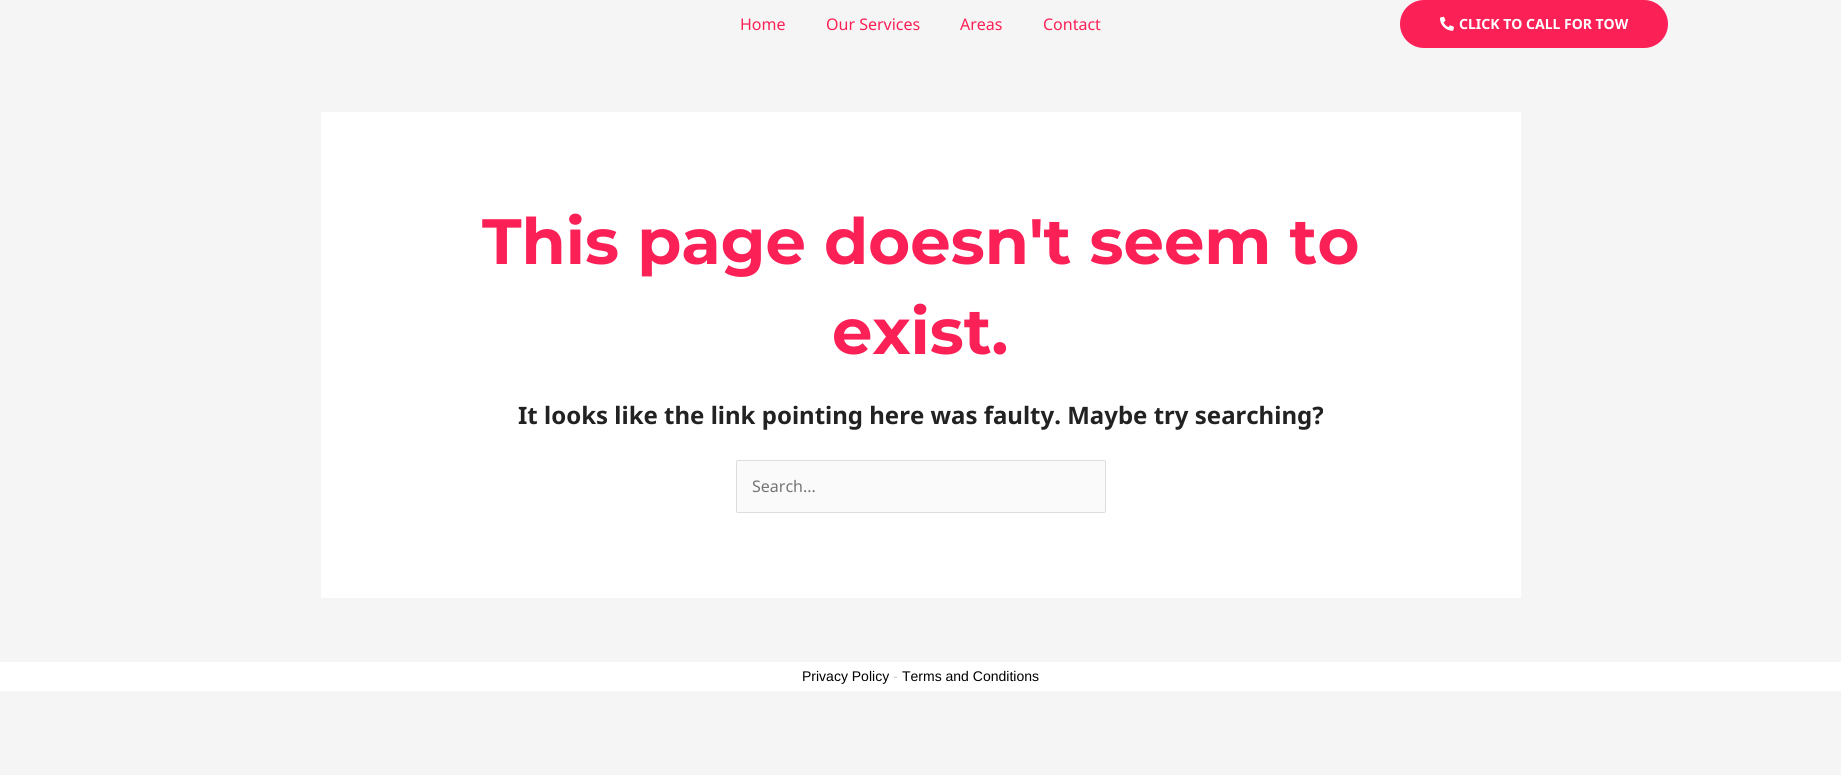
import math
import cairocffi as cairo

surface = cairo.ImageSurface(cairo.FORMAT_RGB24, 1841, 775)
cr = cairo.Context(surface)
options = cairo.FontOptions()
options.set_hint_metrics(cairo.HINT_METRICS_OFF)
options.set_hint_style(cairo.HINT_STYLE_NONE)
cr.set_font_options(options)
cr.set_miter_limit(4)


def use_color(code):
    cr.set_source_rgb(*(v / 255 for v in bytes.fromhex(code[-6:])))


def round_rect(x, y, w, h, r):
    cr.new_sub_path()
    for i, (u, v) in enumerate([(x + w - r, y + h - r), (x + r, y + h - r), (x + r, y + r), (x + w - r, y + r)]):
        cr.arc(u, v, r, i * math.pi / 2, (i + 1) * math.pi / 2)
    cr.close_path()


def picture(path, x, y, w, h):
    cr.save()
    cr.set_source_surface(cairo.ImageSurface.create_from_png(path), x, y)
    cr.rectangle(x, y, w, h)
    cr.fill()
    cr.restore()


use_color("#f5f5f5")
cr.paint()
cr.select_font_face("Noto Sans")
cr.set_font_size(16)
use_color("#fb2056")
cr.move_to(740, 30)
cr.show_text("Home")
cr.move_to(826, 30)
cr.show_text("Our Services")
cr.move_to(960, 30)
cr.show_text("Areas")
cr.move_to(1043, 30)
cr.show_text("Contact")
round_rect(1400, 0, 268, 48, 24)
cr.fill()
picture("img1.png", 1440, 16, 14, 15)
cr.select_font_face("Noto Sans", cairo.FONT_SLANT_NORMAL, cairo.FONT_WEIGHT_BOLD)
cr.set_font_size(14)
use_color("#ffffff")
cr.move_to(1459, 29)
cr.show_text("CLICK TO CALL FOR TOW")
cr.rectangle(321, 112, 1200, 486)
cr.fill()
cr.select_font_face("Montserrat Thin")
cr.set_font_size(64)
use_color("#fb2056")
cr.move_to(482, 264)
cr.show_text("This page doesn't seem to")
cr.move_to(832, 354)
cr.show_text("exist.")
cr.select_font_face("Noto Sans", cairo.FONT_SLANT_NORMAL, cairo.FONT_WEIGHT_BOLD)
cr.set_font_size(24)
use_color("#222222")
cr.move_to(518, 424)
cr.show_text("It looks like the link pointing here was faulty. Maybe try searching?")
use_color("#fafafa")
round_rect(736.5, 460.5, 369, 52, 1.5)
cr.fill_preserve()
use_color("#dddddd")
cr.set_line_width(1)
cr.stroke()
cr.select_font_face("Noto Sans")
cr.set_font_size(16)
use_color("#757575")
cr.move_to(752, 492)
cr.show_text("Search...")
use_color("#ffffff")
cr.rectangle(0, 662, 1841, 29)
cr.fill()
cr.select_font_face("Liberation Sans")
cr.set_font_size(14)
use_color("#000000")
cr.move_to(802, 681)
cr.show_text("Privacy Policy")
use_color("#cccccc")
cr.move_to(893, 681)
cr.show_text("-")
use_color("#000000")
cr.move_to(902, 681)
cr.show_text("Terms and Conditions")
surface.write_to_png("result.png")
